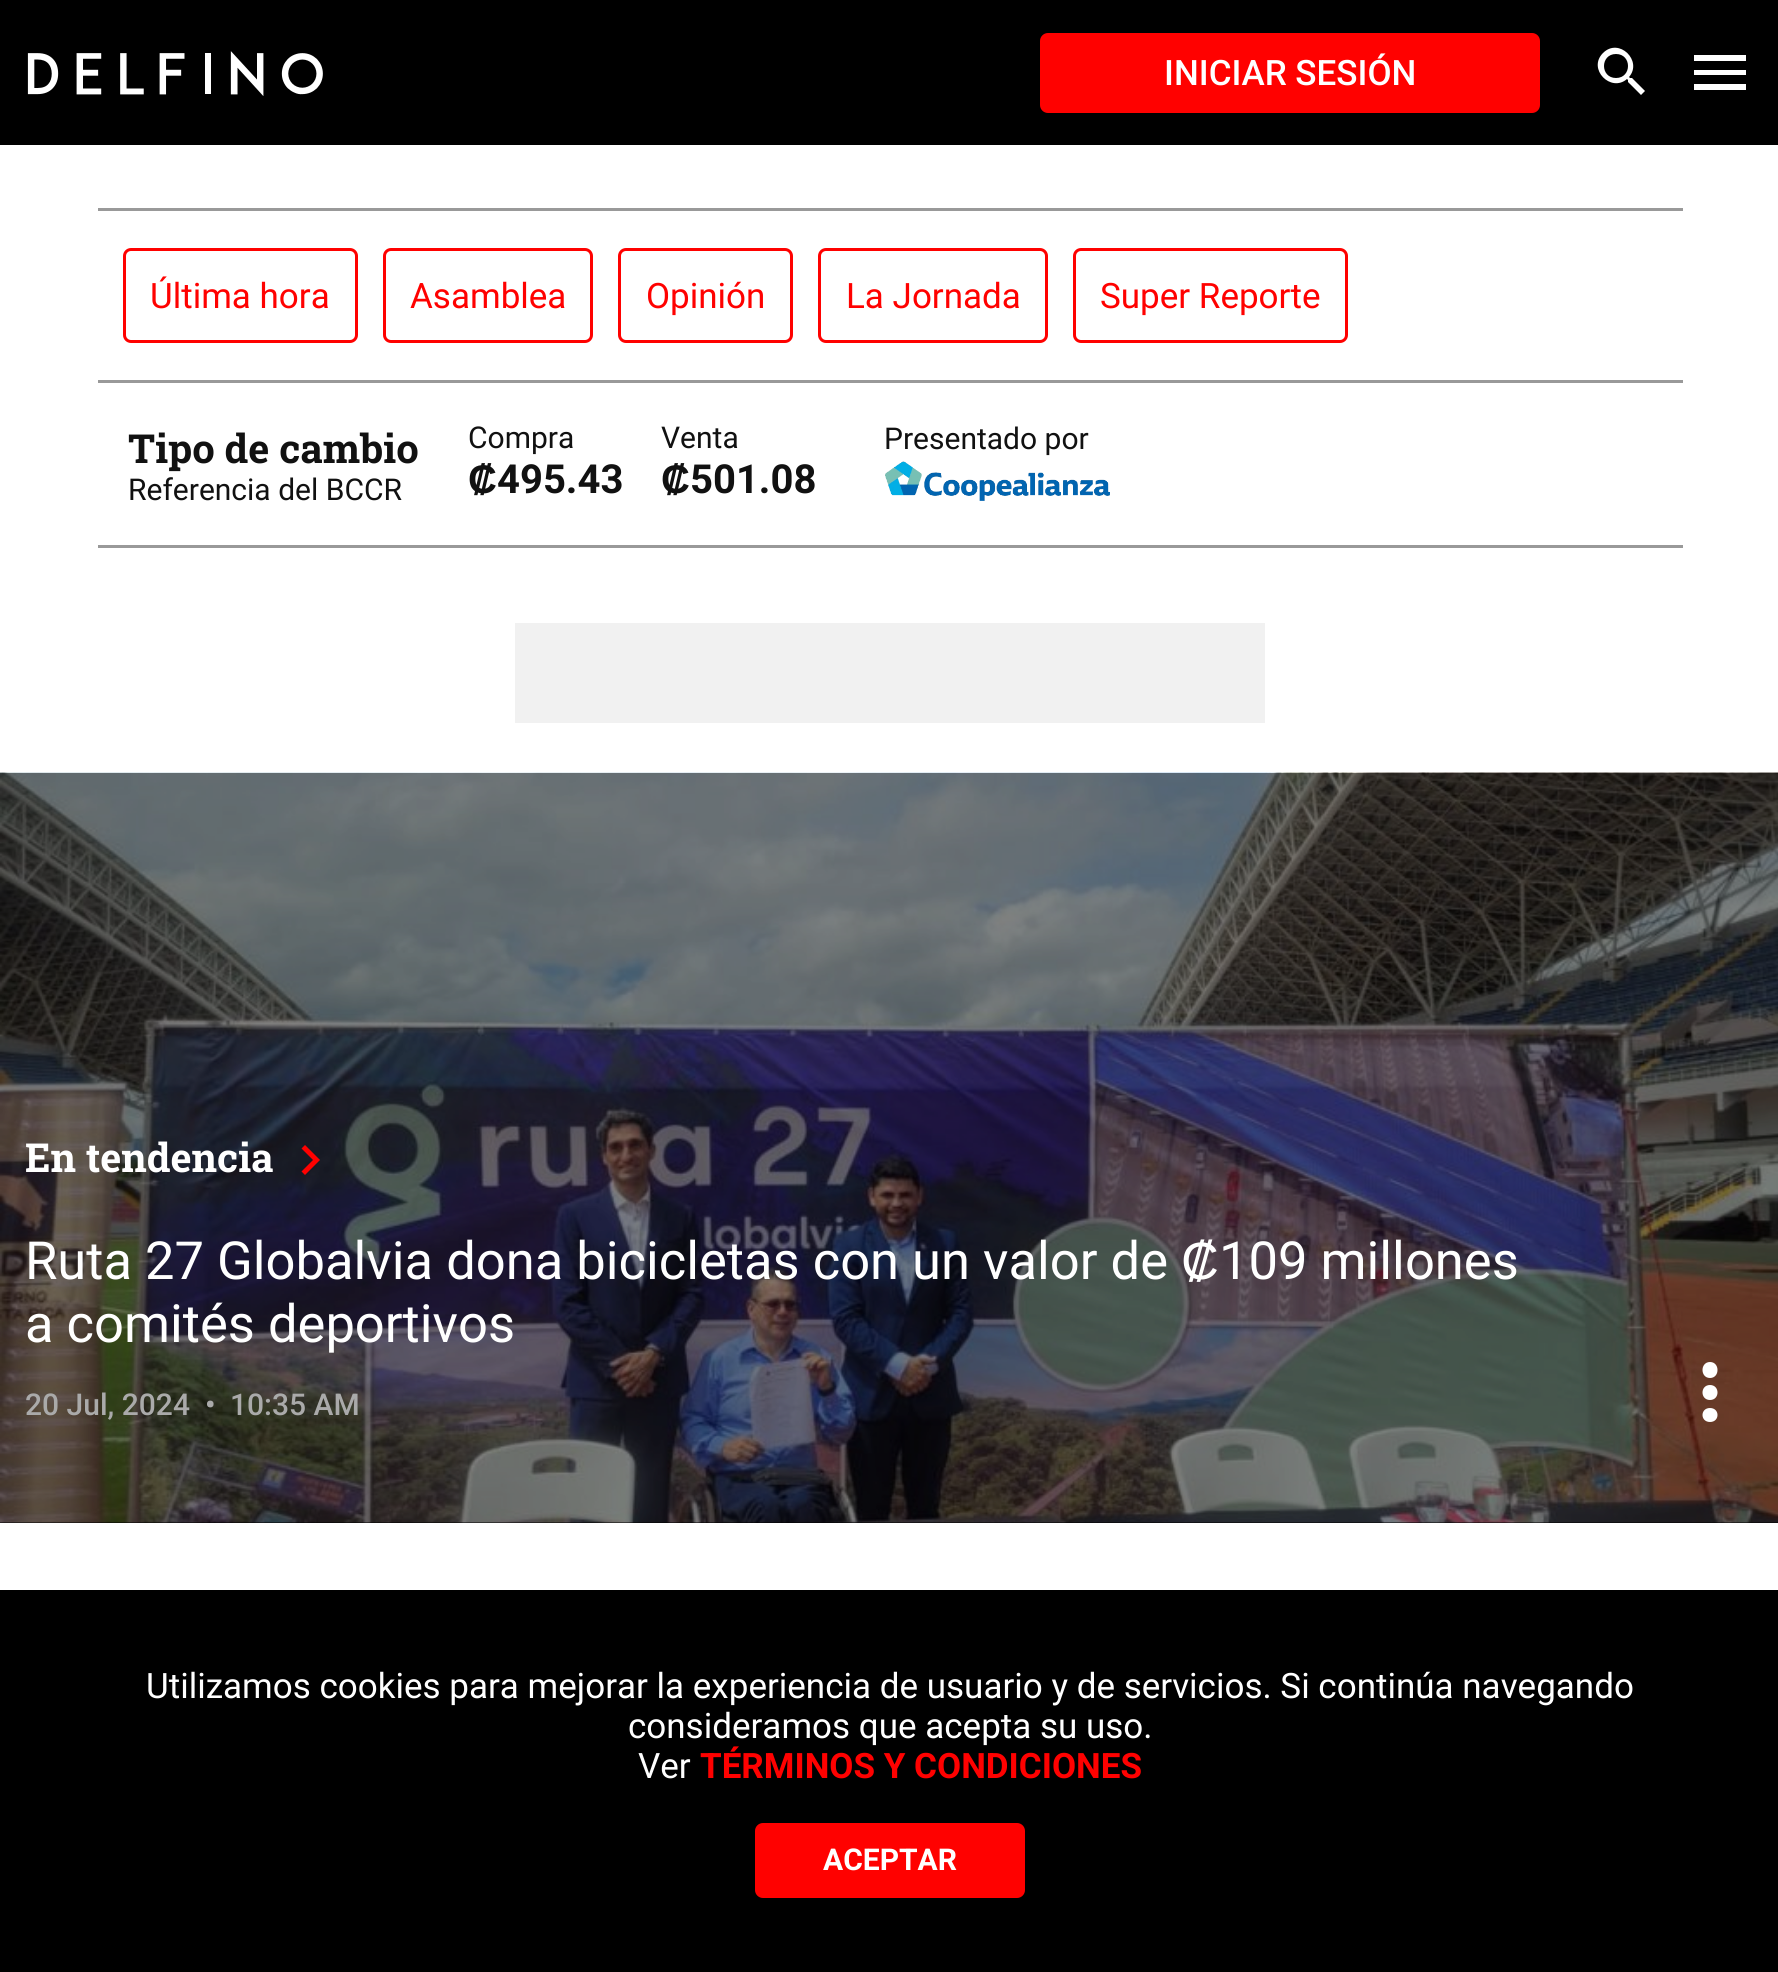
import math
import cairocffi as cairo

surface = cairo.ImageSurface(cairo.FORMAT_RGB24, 1778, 1972)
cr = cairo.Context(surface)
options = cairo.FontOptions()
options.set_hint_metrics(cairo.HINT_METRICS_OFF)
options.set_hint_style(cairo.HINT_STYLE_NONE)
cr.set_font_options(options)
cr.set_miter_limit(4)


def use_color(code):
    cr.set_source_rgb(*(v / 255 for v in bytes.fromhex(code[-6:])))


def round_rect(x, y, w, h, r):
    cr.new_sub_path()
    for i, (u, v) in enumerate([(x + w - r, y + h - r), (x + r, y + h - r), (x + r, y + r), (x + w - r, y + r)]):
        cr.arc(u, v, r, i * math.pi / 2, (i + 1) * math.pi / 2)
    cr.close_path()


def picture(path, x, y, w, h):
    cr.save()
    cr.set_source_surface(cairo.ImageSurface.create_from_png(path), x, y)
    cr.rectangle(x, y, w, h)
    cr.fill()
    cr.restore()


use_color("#ffffff")
cr.paint()
use_color("#000000")
cr.rectangle(0, 0, 1778, 145)
cr.fill()
picture("img1.png", 27, 51, 296, 45)
use_color("#ff0100")
round_rect(1042.5, 35.5, 495, 75, 5.5)
cr.fill_preserve()
cr.set_line_width(5)
cr.stroke()
cr.select_font_face("Roboto Medium")
cr.set_font_size(35)
use_color("#ffffff")
cr.move_to(1164, 85)
cr.show_text("INICIAR SESIÓN")
cr.new_path()
cr.move_to(1632, 78)
cr.line_to(1630, 78)
cr.line_to(1629, 77)
cr.curve_to(1643, 61, 1619, 37, 1603, 53)
cr.curve_to(1587, 69, 1611, 93, 1627, 79)
cr.line_to(1628, 80)
cr.line_to(1628, 82)
cr.line_to(1641, 95)
cr.line_to(1645, 91)
cr.close_path()
cr.move_to(1616, 78)
cr.curve_to(1600, 78, 1600, 54, 1616, 54)
cr.curve_to(1632, 54, 1632, 78, 1616, 78)
cr.close_path()
cr.fill()
cr.new_path()
cr.move_to(1694, 90)
cr.line_to(1694, 84)
cr.line_to(1746, 84)
cr.line_to(1746, 90)
cr.close_path()
cr.move_to(1694, 75)
cr.line_to(1694, 70)
cr.line_to(1746, 70)
cr.line_to(1746, 75)
cr.close_path()
cr.move_to(1694, 61)
cr.line_to(1694, 55)
cr.line_to(1746, 55)
cr.line_to(1746, 61)
cr.close_path()
cr.fill()
use_color("#999999")
cr.rectangle(98, 208, 1585, 3)
cr.fill()
cr.rectangle(98, 545, 1585, 3)
cr.fill()
cr.rectangle(98, 380, 1585, 3)
cr.fill()
round_rect(124.5, 249.5, 232, 92, 6.5)
use_color("#ff0100")
cr.set_line_width(3)
cr.stroke()
cr.select_font_face("Roboto")
cr.move_to(150, 308)
cr.show_text("Última hora")
round_rect(384.5, 249.5, 207, 92, 6.5)
cr.stroke()
cr.move_to(410, 308)
cr.show_text("Asamblea")
round_rect(619.5, 249.5, 172, 92, 6.5)
cr.stroke()
cr.move_to(646, 308)
cr.show_text("Opinión")
round_rect(819.5, 249.5, 227, 92, 6.5)
cr.stroke()
cr.move_to(846, 308)
cr.show_text("La Jornada")
round_rect(1074.5, 249.5, 272, 92, 6.5)
cr.stroke()
cr.move_to(1100, 308)
cr.show_text("Super Reporte")
cr.select_font_face("Roboto Slab", cairo.FONT_SLANT_NORMAL, cairo.FONT_WEIGHT_BOLD)
cr.set_font_size(40)
use_color("#111111")
cr.move_to(128, 463)
cr.show_text("Tipo de cambio")
cr.select_font_face("Roboto")
cr.set_font_size(30)
cr.move_to(128, 500)
cr.show_text("Referencia del BCCR")
cr.move_to(468, 448)
cr.show_text("Compra")
cr.select_font_face("Liberation Sans", cairo.FONT_SLANT_NORMAL, cairo.FONT_WEIGHT_BOLD)
cr.set_font_size(40)
cr.move_to(468, 493)
cr.show_text("₡")
cr.select_font_face("Roboto", cairo.FONT_SLANT_NORMAL, cairo.FONT_WEIGHT_BOLD)
cr.move_to(497, 493)
cr.show_text("495.43")
cr.select_font_face("Roboto")
cr.set_font_size(30)
cr.move_to(661, 448)
cr.show_text("Venta")
cr.select_font_face("Liberation Sans", cairo.FONT_SLANT_NORMAL, cairo.FONT_WEIGHT_BOLD)
cr.set_font_size(40)
cr.move_to(661, 493)
cr.show_text("₡")
cr.select_font_face("Roboto", cairo.FONT_SLANT_NORMAL, cairo.FONT_WEIGHT_BOLD)
cr.move_to(690, 493)
cr.show_text("501.08")
cr.select_font_face("Roboto")
cr.set_font_size(30)
cr.move_to(884, 449)
cr.show_text("Presentado por")
picture("img2.png", 885, 461, 225, 40)
use_color("#f1f1f1")
cr.rectangle(515, 623, 750, 100)
cr.fill()
use_color("#000000")
cr.rectangle(0, 1522, 1778, 1)
cr.fill()
picture("img3.png", 0, 772, 1778, 751)
cr.select_font_face("Roboto Slab", cairo.FONT_SLANT_NORMAL, cairo.FONT_WEIGHT_BOLD)
cr.set_font_size(40)
use_color("#ffffff")
cr.move_to(25, 1172)
cr.show_text("En tendencia")
use_color("#ff0100")
cr.new_path()
cr.move_to(305, 1145)
cr.line_to(301.5, 1148.5)
cr.line_to(313, 1160)
cr.line_to(301.5, 1171.5)
cr.line_to(305, 1175)
cr.line_to(320, 1160)
cr.close_path()
cr.fill()
cr.select_font_face("Roboto")
cr.set_font_size(52.5)
use_color("#ffffff")
cr.move_to(25, 1279)
cr.show_text("Ruta 27 Globalvia dona bicicletas con un valor de")
cr.select_font_face("Liberation Sans")
cr.move_to(1181, 1279)
cr.show_text("₡")
cr.select_font_face("Roboto")
cr.move_to(1219, 1279)
cr.show_text("109 millones")
cr.move_to(25, 1342)
cr.show_text("a comités deportivos")
cr.select_font_face("Roboto Medium")
cr.set_font_size(30)
use_color("#aaaaaa")
cr.move_to(25, 1415)
cr.show_text("20 Jul, 2024")
cr.move_to(205, 1415)
cr.show_text("•")
cr.move_to(230, 1415)
cr.show_text("10:35 AM")
use_color("#ffffff")
cr.new_path()
cr.move_to(1710, 1378)
cr.curve_to(1720, 1378, 1720, 1362, 1710, 1362)
cr.curve_to(1700, 1362, 1700, 1378, 1710, 1378)
cr.close_path()
cr.move_to(1710, 1385)
cr.curve_to(1700, 1385, 1700, 1400, 1710, 1400)
cr.curve_to(1720, 1400, 1720, 1385, 1710, 1385)
cr.close_path()
cr.move_to(1710, 1408)
cr.curve_to(1700, 1408, 1700, 1422, 1710, 1422)
cr.curve_to(1720, 1422, 1720, 1408, 1710, 1408)
cr.close_path()
cr.fill()
use_color("#000000")
cr.rectangle(0, 1590, 1778, 382)
cr.fill()
cr.select_font_face("Roboto")
cr.set_font_size(35)
use_color("#ffffff")
cr.move_to(146, 1698)
cr.show_text("Utilizamos cookies para mejorar la experiencia de usuario y de servicios. Si continúa navegando")
cr.move_to(628, 1738)
cr.show_text("consideramos que acepta su uso.")
cr.move_to(638, 1778)
cr.show_text("Ver")
cr.select_font_face("Roboto", cairo.FONT_SLANT_NORMAL, cairo.FONT_WEIGHT_BOLD)
use_color("#ff0100")
cr.move_to(700, 1778)
cr.show_text("TÉRMINOS Y CONDICIONES")
round_rect(757.5, 1825.5, 265, 70, 5.5)
cr.fill_preserve()
cr.set_line_width(5)
cr.stroke()
cr.set_font_size(30)
use_color("#ffffff")
cr.move_to(823, 1870)
cr.show_text("ACEPTAR")
surface.write_to_png("result.png")
